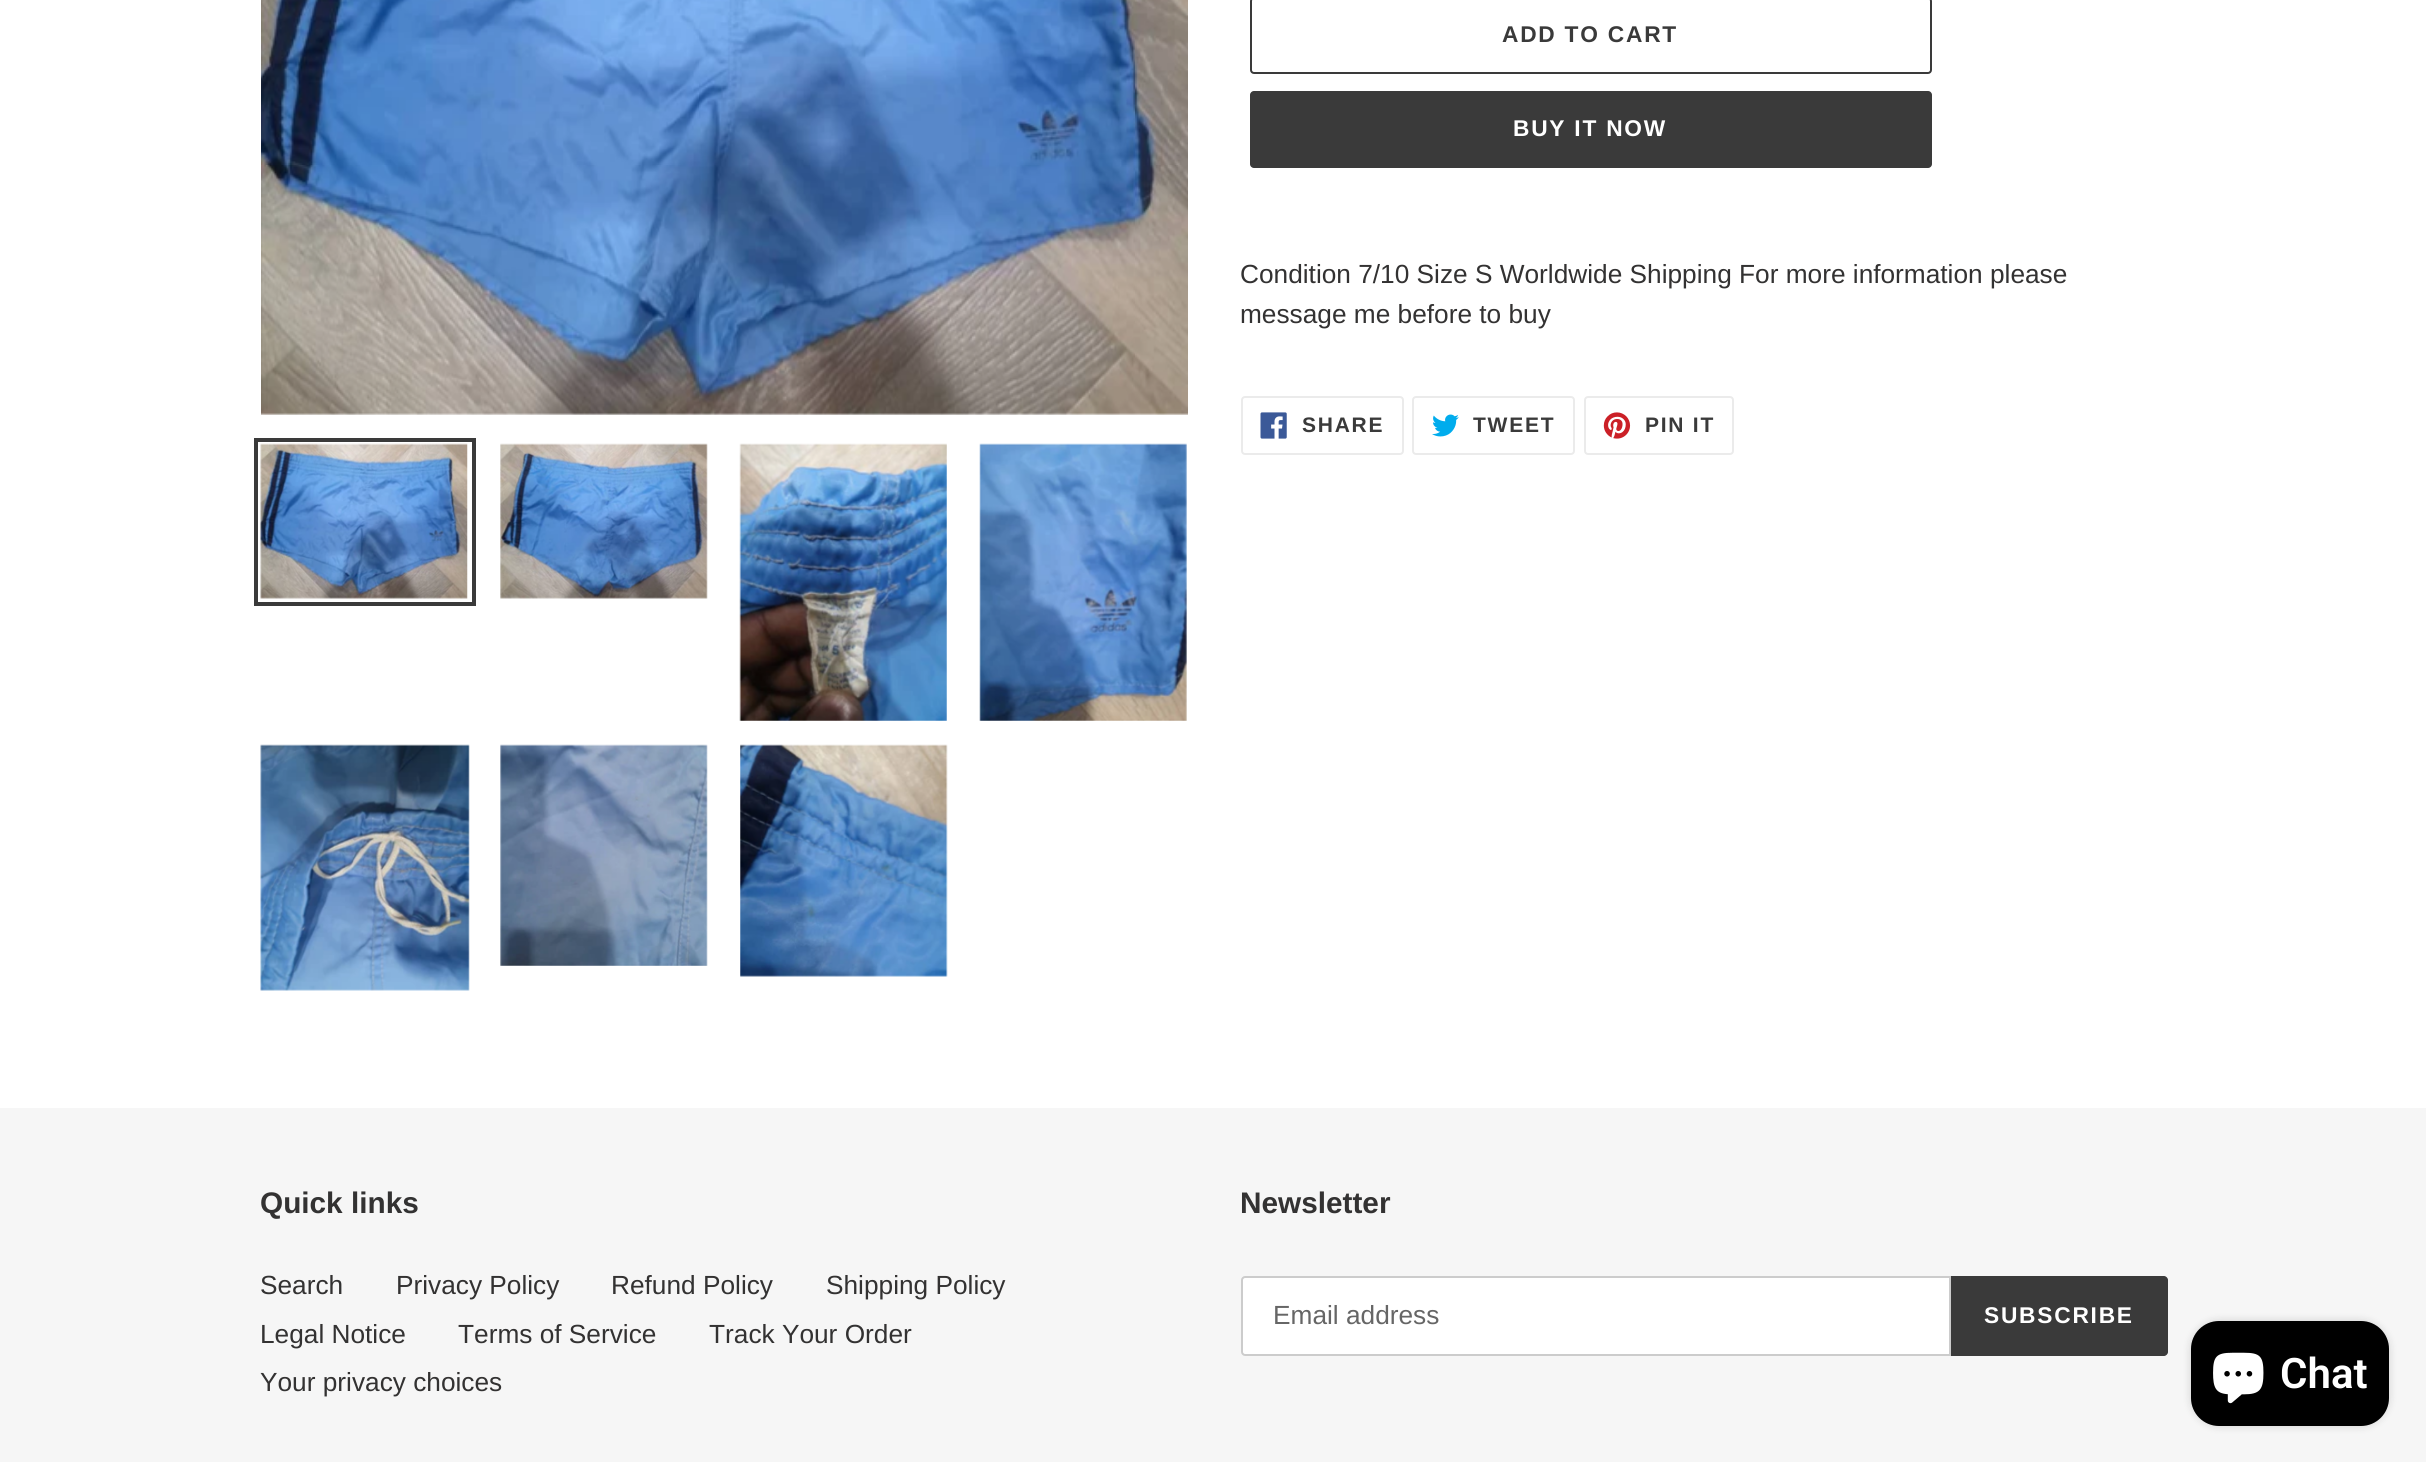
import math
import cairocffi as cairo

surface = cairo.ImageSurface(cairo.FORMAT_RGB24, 2426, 1462)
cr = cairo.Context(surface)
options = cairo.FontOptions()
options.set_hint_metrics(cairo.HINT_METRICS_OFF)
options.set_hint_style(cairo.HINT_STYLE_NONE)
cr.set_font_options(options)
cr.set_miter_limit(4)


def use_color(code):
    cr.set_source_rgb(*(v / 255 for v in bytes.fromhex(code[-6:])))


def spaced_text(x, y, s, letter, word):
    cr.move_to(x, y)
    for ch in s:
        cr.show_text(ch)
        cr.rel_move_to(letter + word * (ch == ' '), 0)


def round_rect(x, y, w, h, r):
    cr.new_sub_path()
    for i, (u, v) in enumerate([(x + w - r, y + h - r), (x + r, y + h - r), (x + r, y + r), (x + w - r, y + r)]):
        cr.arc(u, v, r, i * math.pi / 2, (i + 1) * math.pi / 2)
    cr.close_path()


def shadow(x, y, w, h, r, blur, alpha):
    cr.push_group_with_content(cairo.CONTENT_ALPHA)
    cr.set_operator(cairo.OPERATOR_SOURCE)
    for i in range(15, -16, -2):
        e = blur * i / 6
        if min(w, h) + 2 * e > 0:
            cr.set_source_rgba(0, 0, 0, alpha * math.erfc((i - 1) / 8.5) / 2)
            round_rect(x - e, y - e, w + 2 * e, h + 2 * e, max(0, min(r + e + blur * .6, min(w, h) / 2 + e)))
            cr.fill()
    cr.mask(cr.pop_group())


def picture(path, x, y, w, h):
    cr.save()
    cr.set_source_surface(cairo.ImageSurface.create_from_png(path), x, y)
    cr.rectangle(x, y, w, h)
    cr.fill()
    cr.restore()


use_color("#ffffff")
cr.paint()
picture("img1.png", 261, 0, 927, 415)
cr.rectangle(256, 440, 218, 164)
use_color("#3a3a3a")
cr.set_line_width(4)
cr.stroke()
picture("img2.png", 260, 443, 208, 156)
picture("img3.png", 500, 443, 208, 156)
picture("img4.png", 739, 443, 208, 278)
picture("img5.png", 979, 443, 208, 278)
picture("img6.png", 260, 744, 210, 247)
picture("img7.png", 500, 744, 208, 222)
picture("img8.png", 740, 744, 208, 233)
round_rect(1251, -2, 680, 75, 3)
cr.set_line_width(2)
cr.stroke()
cr.select_font_face("Liberation Sans", cairo.FONT_SLANT_NORMAL, cairo.FONT_WEIGHT_BOLD)
cr.set_font_size(22.75)
spaced_text(1502, 42, "ADD TO CART", 1.75, 0)
round_rect(1250, 91, 682, 77, 4)
cr.fill()
use_color("#ffffff")
spaced_text(1513, 136, "BUY IT NOW", 1.75, 0)
cr.select_font_face("Liberation Sans")
cr.set_font_size(26.25)
use_color("#333232")
cr.move_to(1240, 283)
cr.show_text("Condition 7/10 Size S Worldwide Shipping For more information please")
cr.move_to(1240, 323)
cr.show_text("message me before to buy")
round_rect(1242, 397, 161, 57, 3)
use_color("#ebebeb")
cr.stroke()
picture("img9.png", 1260, 412, 27, 27)
cr.select_font_face("Liberation Sans", cairo.FONT_SLANT_NORMAL, cairo.FONT_WEIGHT_BOLD)
cr.set_font_size(21)
use_color("#3a3a3a")
spaced_text(1302, 432, "SHARE", 1.75, 0)
round_rect(1413, 397, 161, 57, 3)
use_color("#ebebeb")
cr.stroke()
picture("img10.png", 1432, 414, 27, 23)
use_color("#3a3a3a")
spaced_text(1473, 432, "TWEET", 1.75, 0)
round_rect(1585, 397, 148, 57, 3)
use_color("#ebebeb")
cr.stroke()
picture("img11.png", 1603, 412, 28, 27)
use_color("#3a3a3a")
spaced_text(1645, 432, "PIN IT", 1.75, 0)
use_color("#f6f6f6")
cr.rectangle(0, 1108, 2426, 354)
cr.fill()
cr.set_font_size(29.75)
use_color("#333232")
cr.move_to(260, 1213)
cr.show_text("Quick links")
cr.select_font_face("Liberation Sans")
cr.set_font_size(26.25)
cr.move_to(260, 1294)
cr.show_text("Search")
cr.move_to(396, 1294)
cr.show_text("Privacy Policy")
cr.move_to(611, 1294)
cr.show_text("Refund Policy")
cr.move_to(826, 1294)
cr.show_text("Shipping Policy")
cr.move_to(260, 1343)
cr.show_text("Legal Notice")
cr.move_to(458, 1343)
cr.show_text("Terms of Service")
cr.move_to(709, 1343)
cr.show_text("Track Your Order")
cr.move_to(260, 1391)
cr.show_text("Your privacy choices")
cr.select_font_face("Liberation Sans", cairo.FONT_SLANT_NORMAL, cairo.FONT_WEIGHT_BOLD)
cr.set_font_size(29.75)
cr.move_to(1240, 1213)
cr.show_text("Newsletter")
use_color("#ffffff")
cr.new_path()
cr.move_to(1245, 1277)
cr.line_to(1950, 1277)
cr.line_to(1950, 1355)
cr.line_to(1245, 1355)
cr.curve_to(1243.5, 1355, 1242, 1353.5, 1242, 1352)
cr.line_to(1242, 1280)
cr.curve_to(1242, 1278.5, 1243.5, 1277, 1245, 1277)
cr.close_path()
cr.fill_preserve()
use_color("#cccccc")
cr.stroke()
cr.select_font_face("Liberation Sans")
cr.set_font_size(26.25)
use_color("#666666")
cr.move_to(1273, 1324)
cr.show_text("Email address")
use_color("#3a3a3a")
cr.new_path()
cr.move_to(1951, 1276)
cr.line_to(2164, 1276)
cr.curve_to(2166, 1276, 2168, 1278, 2168, 1280)
cr.line_to(2168, 1352)
cr.curve_to(2168, 1354, 2166, 1356, 2164, 1356)
cr.line_to(1951, 1356)
cr.close_path()
cr.fill()
cr.select_font_face("Liberation Sans", cairo.FONT_SLANT_NORMAL, cairo.FONT_WEIGHT_BOLD)
cr.set_font_size(22.75)
use_color("#ffffff")
spaced_text(1984, 1323, "SUBSCRIBE", 1.75, 0)
use_color("#000000")
shadow(2191, 1321, 198, 105, 28, 4.5, 0.15)
use_color("#000000")
round_rect(2191, 1321, 198, 105, 28)
cr.fill()
picture("img12.png", 2213, 1352, 51, 52)
cr.select_font_face("Roboto SemiBold")
cr.set_font_size(42)
use_color("#ffffff")
cr.move_to(2280, 1388)
cr.show_text("Chat")
surface.write_to_png("result.png")
